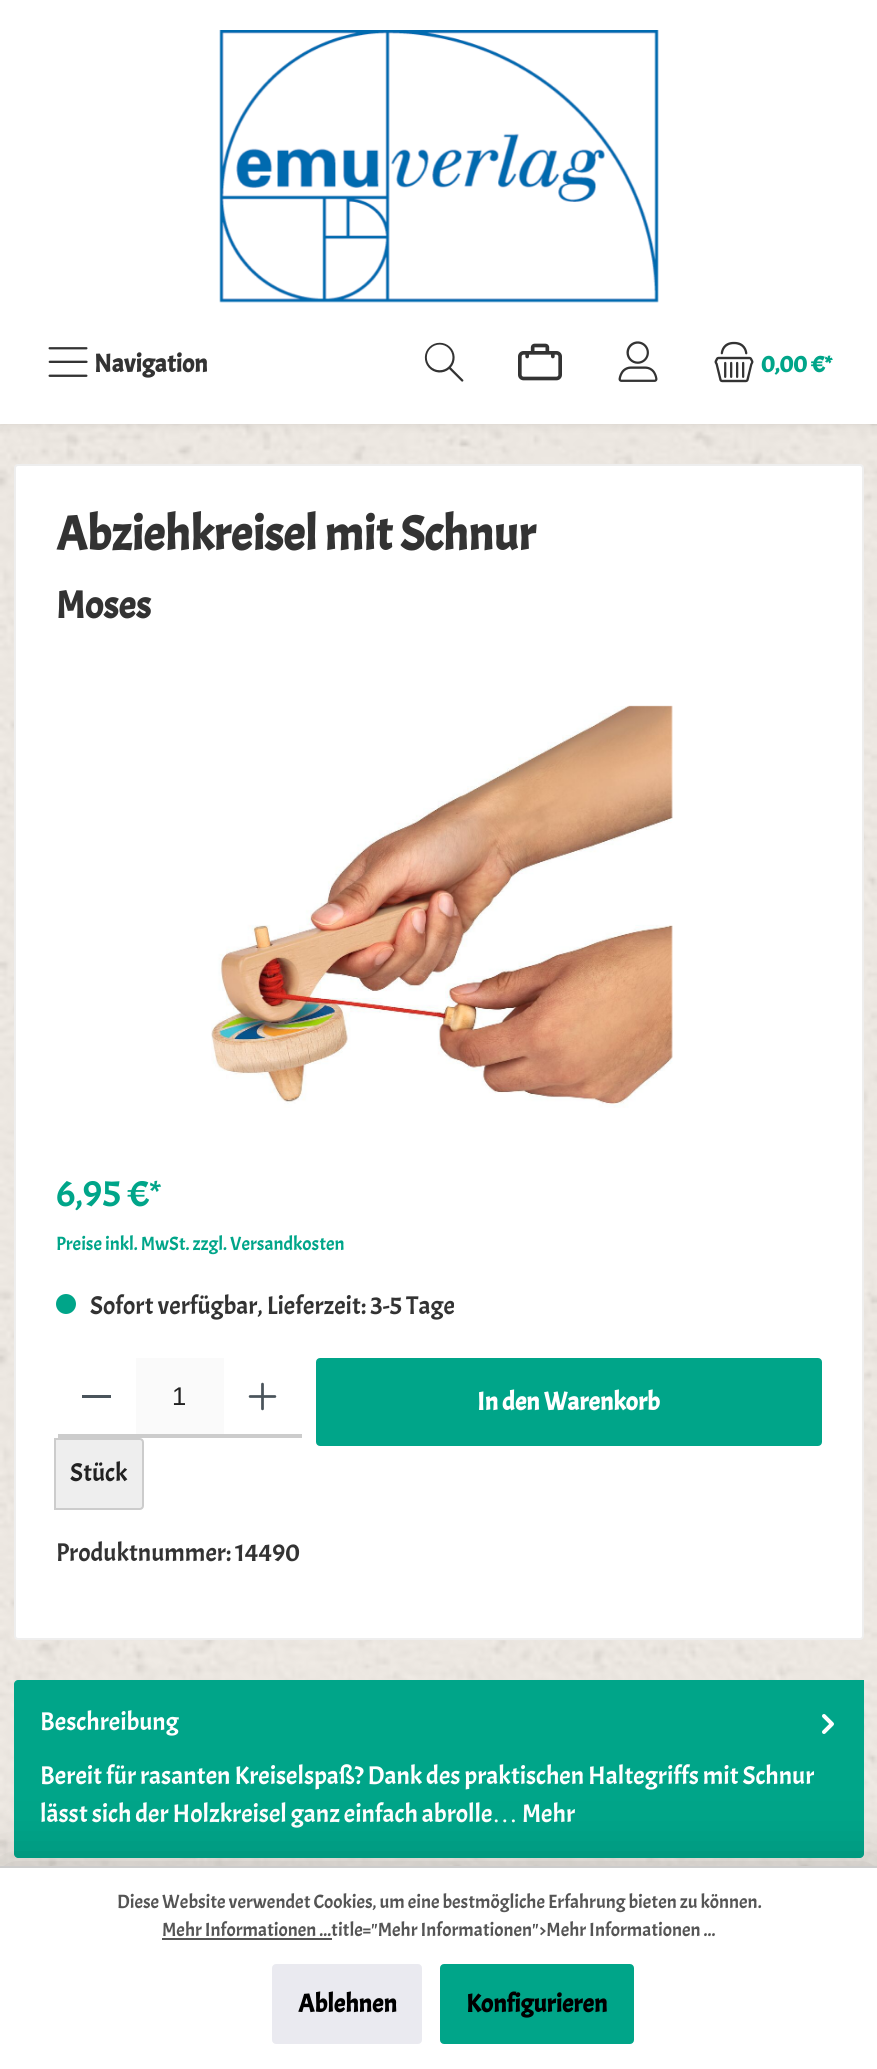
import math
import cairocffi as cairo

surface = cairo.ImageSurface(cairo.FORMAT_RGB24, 877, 2069)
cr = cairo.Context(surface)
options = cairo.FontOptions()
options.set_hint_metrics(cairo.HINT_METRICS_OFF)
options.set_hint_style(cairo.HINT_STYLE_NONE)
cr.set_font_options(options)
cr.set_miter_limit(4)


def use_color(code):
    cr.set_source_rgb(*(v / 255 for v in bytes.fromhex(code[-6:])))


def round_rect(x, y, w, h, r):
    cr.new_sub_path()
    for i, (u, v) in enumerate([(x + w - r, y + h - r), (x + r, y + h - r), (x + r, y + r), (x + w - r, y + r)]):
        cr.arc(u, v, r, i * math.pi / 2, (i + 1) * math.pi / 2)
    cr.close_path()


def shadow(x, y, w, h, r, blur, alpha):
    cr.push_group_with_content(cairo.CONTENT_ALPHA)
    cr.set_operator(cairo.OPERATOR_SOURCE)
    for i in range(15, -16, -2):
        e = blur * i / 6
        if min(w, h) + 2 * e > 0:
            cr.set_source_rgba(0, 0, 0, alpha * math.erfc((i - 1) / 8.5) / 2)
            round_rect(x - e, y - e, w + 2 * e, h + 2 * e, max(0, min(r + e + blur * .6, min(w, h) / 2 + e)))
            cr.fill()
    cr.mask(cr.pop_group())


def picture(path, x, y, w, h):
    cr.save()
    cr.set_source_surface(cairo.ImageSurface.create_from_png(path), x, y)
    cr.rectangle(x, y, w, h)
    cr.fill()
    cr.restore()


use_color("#ffffff")
cr.paint()
picture("img1.png", 0, 424, 877, 1442)
use_color("#000000")
shadow(0, 0, 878, 424, 0, 5, 0.1)
use_color("#ffffff")
cr.rectangle(0, 0, 877, 424)
cr.fill()
picture("img2.png", 219, 30, 440, 273)
picture("img3.png", 48, 347, 40, 30)
cr.select_font_face("Acme", cairo.FONT_SLANT_NORMAL, cairo.FONT_WEIGHT_BOLD)
cr.set_font_size(25.6)
use_color("#333333")
cr.move_to(94, 372)
cr.show_text("Navigation")
picture("img4.png", 424, 342, 40, 40)
picture("img5.png", 518, 343, 44, 38)
picture("img6.png", 618, 341, 40, 41)
picture("img7.png", 714, 341, 40, 42)
cr.set_font_size(24)
use_color("#00a589")
cr.move_to(761, 372)
cr.show_text("0,00 €*")
use_color("#ffffff")
round_rect(15, 465, 848, 1174, 3)
cr.fill_preserve()
use_color("#eeeeee")
cr.stroke()
cr.set_font_size(48.4)
use_color("#333333")
cr.move_to(56, 550)
cr.show_text("Abziehkreisel mit Schnur")
cr.set_font_size(38.5)
cr.move_to(56, 618)
cr.show_text("Moses")
picture("img8.png", 211, 705, 462, 403)
cr.select_font_face("Acme")
use_color("#00a589")
cr.move_to(56, 1206)
cr.show_text("6,95 €*")
cr.set_font_size(19.2)
cr.move_to(56, 1250)
cr.show_text("Preise inkl. MwSt. zzgl. Versandkosten")
cr.new_path()
cr.arc(66, 1304, 10, 0, 2 * math.pi)
cr.fill()
cr.set_font_size(25.6)
use_color("#333333")
cr.move_to(90, 1314)
cr.show_text("Sofort verfügbar, Lieferzeit: 3-5 Tage")
use_color("#4a545b")
cr.rectangle(82, 1395, 29, 3)
cr.fill()
use_color("#fafafa")
cr.rectangle(136, 1358, 88, 76)
cr.fill()
use_color("#cccccc")
cr.rectangle(58, 1434, 244, 4)
cr.fill()
cr.select_font_face("Liberation Sans")
use_color("#222222")
cr.move_to(172, 1405)
cr.show_text("1")
picture("img9.png", 248, 1382, 29, 29)
use_color("#eeeeee")
cr.new_path()
cr.move_to(55, 1439)
cr.line_to(140, 1439)
cr.curve_to(141.5, 1439, 143, 1440.5, 143, 1442)
cr.line_to(143, 1506)
cr.curve_to(143, 1507.5, 141.5, 1509, 140, 1509)
cr.line_to(55, 1509)
cr.close_path()
cr.fill_preserve()
use_color("#cccccc")
cr.stroke()
cr.select_font_face("Acme")
use_color("#222222")
cr.move_to(70, 1481)
cr.show_text("Stück")
use_color("#00a589")
round_rect(317, 1359, 504, 86, 3)
cr.fill_preserve()
cr.stroke()
cr.select_font_face("Acme", cairo.FONT_SLANT_NORMAL, cairo.FONT_WEIGHT_BOLD)
use_color("#ffffff")
cr.move_to(477, 1410)
cr.show_text("In den Warenkorb")
cr.select_font_face("Acme")
use_color("#333333")
cr.move_to(56, 1561)
cr.show_text("Produktnummer: 14490")
cr.new_path()
cr.move_to(22, 1681)
cr.line_to(860, 1681)
cr.curve_to(861.5, 1681, 863, 1682.5, 863, 1684)
cr.line_to(863, 1854)
cr.curve_to(863, 1855.5, 861.5, 1857, 860, 1857)
cr.line_to(18, 1857)
cr.curve_to(16.5, 1857, 15, 1855.5, 15, 1854)
cr.line_to(15, 1688)
cr.curve_to(15, 1684, 18, 1681, 22, 1681)
cr.close_path()
use_color("#eeeeee")
cr.stroke()
use_color("#00a589")
cr.new_path()
cr.move_to(18, 1680)
cr.line_to(864, 1680)
cr.line_to(864, 1854)
cr.curve_to(864, 1856, 862, 1858, 860, 1858)
cr.line_to(18, 1858)
cr.curve_to(16, 1858, 14, 1856, 14, 1854)
cr.line_to(14, 1684)
cr.curve_to(14, 1682, 16, 1680, 18, 1680)
cr.close_path()
cr.fill()
use_color("#ffffff")
cr.move_to(40, 1730)
cr.show_text("Beschreibung")
picture("img10.png", 822, 1714, 12, 20)
cr.move_to(40, 1784)
cr.show_text("Bereit für rasanten Kreiselspaß? Dank des praktischen Haltegriffs mit Schnur")
cr.move_to(40, 1822)
cr.show_text("lässt sich der Holzkreisel ganz einfach abrolle")
cr.select_font_face("Liberation Serif")
cr.move_to(492, 1822)
cr.show_text("…")
cr.select_font_face("Acme")
cr.move_to(522, 1822)
cr.show_text("Mehr")
use_color("#000000")
shadow(0, 1866, 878, 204, 0, 30, 0.2)
use_color("#ffffff")
cr.rectangle(0, 1868, 877, 201)
cr.fill()
use_color("#cccccc")
cr.rectangle(0, 1866, 877, 2)
cr.fill()
cr.set_font_size(19.2)
use_color("#555555")
cr.move_to(117, 1908)
cr.show_text("Diese Website verwendet Cookies, um eine bestmögliche Erfahrung bieten zu können.")
cr.move_to(162, 1936)
cr.show_text("Mehr Informationen ...title=\"Mehr Informationen\">Mehr Informationen ...")
cr.rectangle(162, 1938, 170, 2)
cr.fill()
use_color("#eaeaf0")
round_rect(273, 1965, 148, 78, 3)
cr.fill_preserve()
cr.stroke()
cr.select_font_face("Acme", cairo.FONT_SLANT_NORMAL, cairo.FONT_WEIGHT_BOLD)
cr.set_font_size(25.6)
use_color("#000000")
cr.move_to(298, 2012)
cr.show_text("Ablehnen")
use_color("#00a589")
round_rect(441, 1965, 192, 78, 3)
cr.fill_preserve()
cr.stroke()
use_color("#000000")
cr.move_to(466, 2012)
cr.show_text("Konfigurieren")
surface.write_to_png("result.png")
